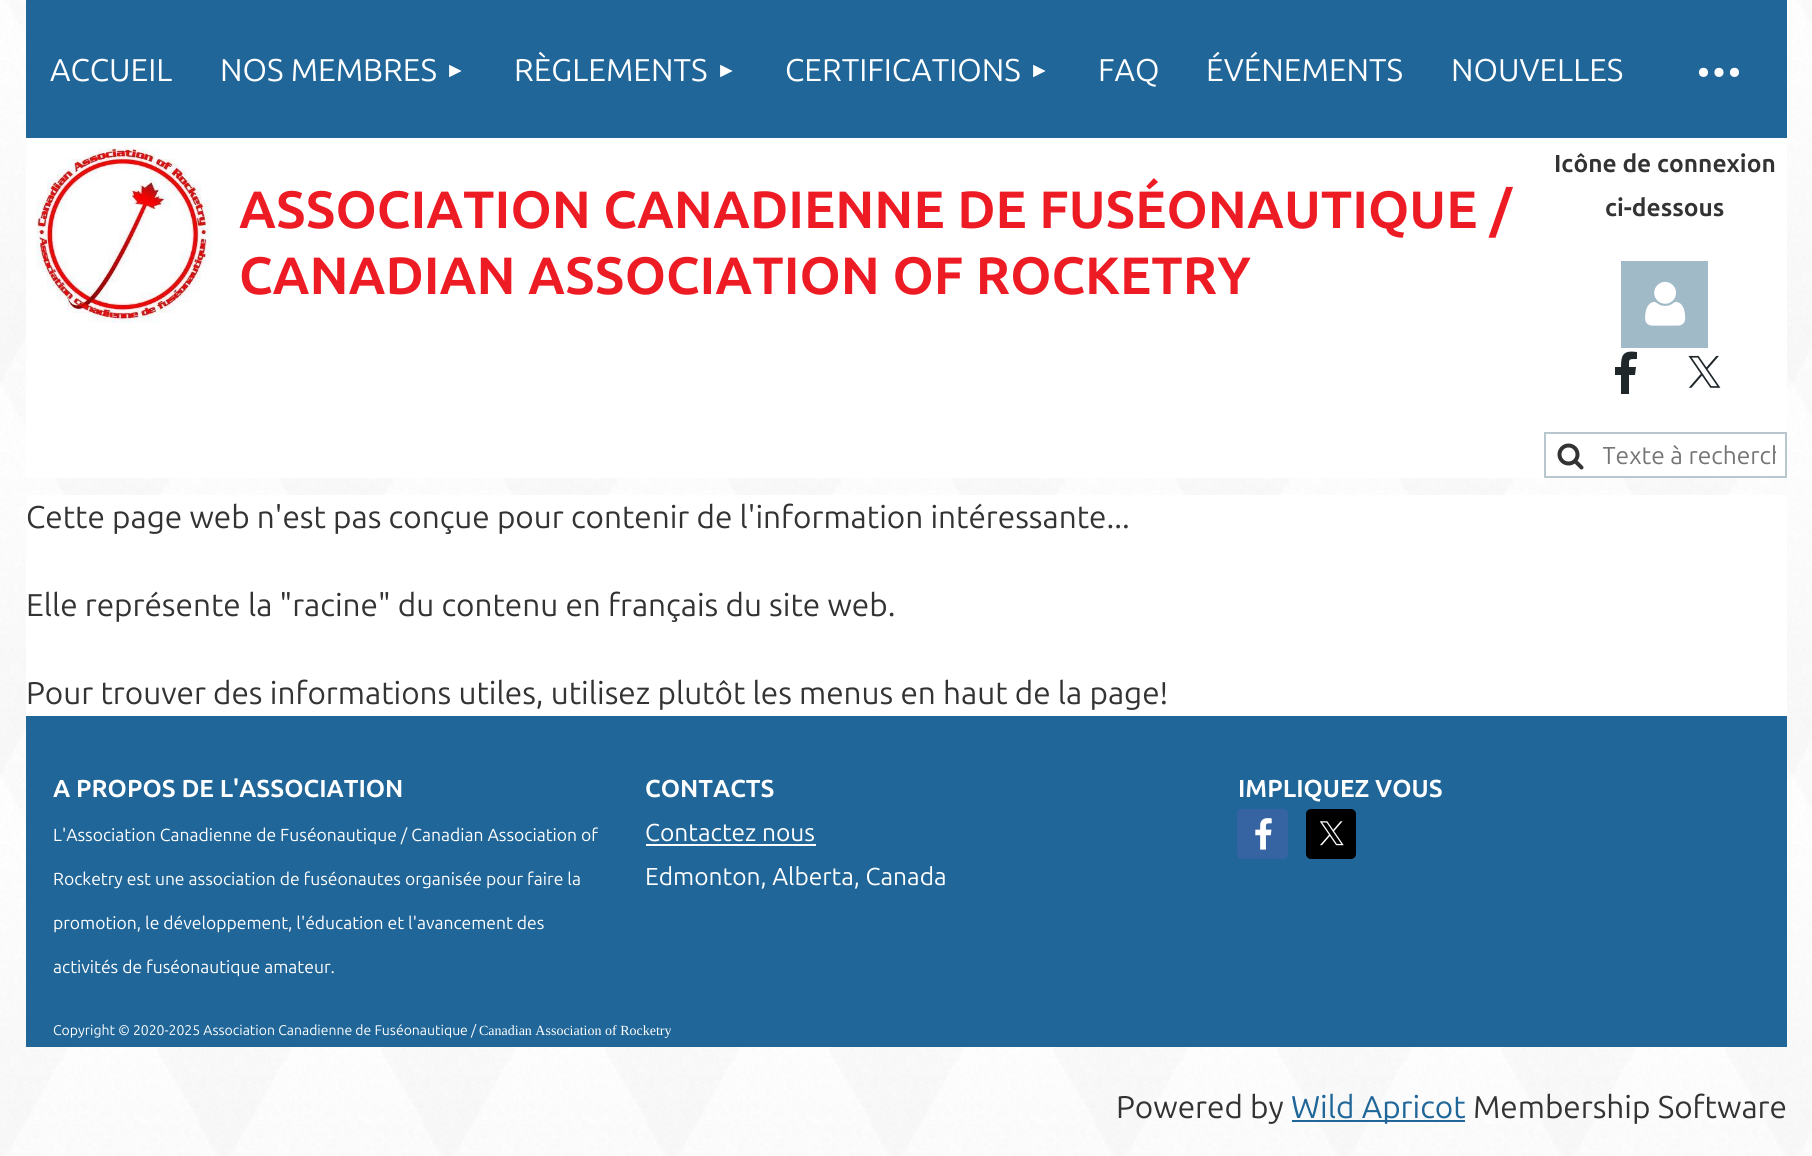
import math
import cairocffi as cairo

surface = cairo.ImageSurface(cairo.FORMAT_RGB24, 1812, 1156)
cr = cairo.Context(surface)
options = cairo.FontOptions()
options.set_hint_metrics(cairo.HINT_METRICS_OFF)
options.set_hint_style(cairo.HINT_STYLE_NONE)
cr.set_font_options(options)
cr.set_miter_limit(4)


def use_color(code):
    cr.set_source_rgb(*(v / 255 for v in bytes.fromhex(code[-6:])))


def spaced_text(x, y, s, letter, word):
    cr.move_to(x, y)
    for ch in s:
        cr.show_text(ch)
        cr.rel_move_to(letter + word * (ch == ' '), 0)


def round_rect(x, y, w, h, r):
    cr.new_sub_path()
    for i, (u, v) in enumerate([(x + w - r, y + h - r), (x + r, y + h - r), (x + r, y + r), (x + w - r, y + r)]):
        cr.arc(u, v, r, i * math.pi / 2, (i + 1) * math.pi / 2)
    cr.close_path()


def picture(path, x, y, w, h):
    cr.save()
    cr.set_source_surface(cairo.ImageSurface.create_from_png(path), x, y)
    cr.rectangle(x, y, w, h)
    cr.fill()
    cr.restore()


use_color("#ffffff")
cr.paint()
picture("img1.png", 0, 0, 1812, 1156)
use_color("#206699")
cr.rectangle(26, 0, 1761, 138)
cr.fill()
cr.select_font_face("Ubuntu")
cr.set_font_size(31.5)
use_color("#ffffff")
cr.move_to(50, 81)
cr.show_text("ACCUEIL")
cr.move_to(220, 81)
cr.show_text("NOS MEMBRES")
cr.select_font_face("Liberation Sans")
cr.set_font_size(21)
cr.move_to(445, 77)
cr.show_text("►")
cr.select_font_face("Ubuntu")
cr.set_font_size(31.5)
cr.move_to(514, 81)
cr.show_text("RÈGLEMENTS")
cr.select_font_face("Liberation Sans")
cr.set_font_size(21)
cr.move_to(716, 77)
cr.show_text("►")
cr.select_font_face("Ubuntu")
cr.set_font_size(31.5)
cr.move_to(785, 81)
cr.show_text("CERTIFICATIONS")
cr.select_font_face("Liberation Sans")
cr.set_font_size(21)
cr.move_to(1029, 77)
cr.show_text("►")
cr.select_font_face("Ubuntu")
cr.set_font_size(31.5)
cr.move_to(1098, 81)
cr.show_text("FAQ")
cr.move_to(1206, 81)
cr.show_text("ÉVÉNEMENTS")
cr.move_to(1451, 81)
cr.show_text("NOUVELLES")
cr.set_font_size(77)
spaced_text(1694, 95, "···", -3.5, 0)
cr.rectangle(26, 138, 1761, 340)
cr.fill()
picture("img2.png", 36, 148, 175, 175)
cr.select_font_face("Ubuntu", cairo.FONT_SLANT_NORMAL, cairo.FONT_WEIGHT_BOLD)
cr.set_font_size(52.5)
use_color("#ed1c24")
cr.move_to(239, 228)
cr.show_text("ASSOCIATION CANADIENNE DE FUSÉONAUTIQUE /")
cr.move_to(239, 294)
cr.show_text("CANADIAN ASSOCIATION OF ROCKETRY")
cr.set_font_size(24.5)
use_color("#333333")
cr.move_to(1554, 172)
cr.show_text("Icône de connexion")
cr.move_to(1605, 216)
cr.show_text("ci-dessous")
use_color("#a0bac7")
cr.rectangle(1621, 261, 87, 87)
cr.fill()
picture("img3.png", 1645, 281, 41, 45)
use_color("#1f272b")
cr.new_path()
cr.move_to(1637, 359)
cr.curve_to(1628, 359, 1629, 359, 1629, 367)
cr.line_to(1636, 367)
cr.line_to(1635, 375)
cr.line_to(1629, 375)
cr.line_to(1629, 394)
cr.line_to(1621, 394)
cr.line_to(1621, 375)
cr.line_to(1615, 375)
cr.line_to(1615, 367)
cr.line_to(1621, 367)
cr.curve_to(1621, 355, 1623, 350, 1637, 352)
cr.close_path()
cr.fill()
picture("img4.png", 1688, 355, 33, 33)
cr.rectangle(1545, 433, 241, 44)
use_color("#b8c6cd")
cr.stroke()
picture("img5.png", 1557, 443, 27, 27)
cr.save()
cr.rectangle(1603, 441, 173, 28)
cr.clip()
cr.select_font_face("Ubuntu")
use_color("#757575")
cr.move_to(1602, 464)
cr.show_text("Texte à recherch")
cr.restore()
use_color("#ffffff")
cr.rectangle(26, 495, 1761, 221)
cr.fill()
cr.select_font_face("Ubuntu")
cr.set_font_size(31.5)
use_color("#333333")
cr.move_to(26, 528)
cr.show_text("Cette page web n'est pas conçue pour contenir de l'information intéressante...")
cr.move_to(26, 616)
cr.show_text("Elle représente la \"racine\" du contenu en français du site web.")
cr.move_to(26, 704)
cr.show_text("Pour trouver des informations utiles, utilisez plutôt les menus en haut de la page!")
use_color("#206699")
cr.rectangle(26, 716, 1761, 331)
cr.fill()
cr.select_font_face("Ubuntu", cairo.FONT_SLANT_NORMAL, cairo.FONT_WEIGHT_BOLD)
cr.set_font_size(24.5)
use_color("#ffffff")
cr.move_to(53, 797)
cr.show_text("A PROPOS DE L'ASSOCIATION")
cr.select_font_face("Ubuntu")
cr.set_font_size(17.5)
cr.move_to(53, 841)
cr.show_text("L'Association Canadienne de Fuséonautique / Canadian Association of")
cr.move_to(53, 885)
cr.show_text("Rocketry est une association de fuséonautes organisée pour faire la")
cr.move_to(53, 929)
cr.show_text("promotion, le développement, l'éducation et l'avancement des")
cr.move_to(53, 973)
cr.show_text("activités de fuséonautique amateur.")
cr.select_font_face("Ubuntu", cairo.FONT_SLANT_NORMAL, cairo.FONT_WEIGHT_BOLD)
cr.set_font_size(24.5)
cr.move_to(645, 797)
cr.show_text("CONTACTS")
cr.select_font_face("Ubuntu")
cr.move_to(645, 841)
cr.show_text("Contactez nous")
cr.rectangle(646, 844, 170, 2)
cr.fill()
cr.move_to(645, 885)
cr.show_text("Edmonton, Alberta, Canada")
cr.select_font_face("Ubuntu", cairo.FONT_SLANT_NORMAL, cairo.FONT_WEIGHT_BOLD)
cr.move_to(1238, 797)
cr.show_text("IMPLIQUEZ VOUS")
use_color("#3664a2")
round_rect(1237, 809, 51, 50, 5)
cr.fill()
picture("img6.png", 1255, 818, 17, 32)
use_color("#000000")
round_rect(1306, 809, 50, 50, 5)
cr.fill()
picture("img7.png", 1319, 821, 25, 25)
cr.select_font_face("Ubuntu")
cr.set_font_size(14)
use_color("#ffffff")
cr.move_to(53, 1035)
cr.show_text("Copyright © 2020-2025 Association Canadienne de Fuséonautique /")
cr.select_font_face("Liberation Serif")
cr.move_to(479, 1035)
cr.show_text("Canadian Association of Rocketry")
cr.select_font_face("Ubuntu")
cr.set_font_size(31.5)
use_color("#333333")
cr.move_to(1116, 1118)
cr.show_text("Powered by")
use_color("#206699")
cr.rectangle(1292, 1120, 173, 2)
cr.fill()
cr.move_to(1291, 1118)
cr.show_text("Wild Apricot")
use_color("#333333")
cr.move_to(1473, 1118)
cr.show_text("Membership Software")
surface.write_to_png("result.png")
